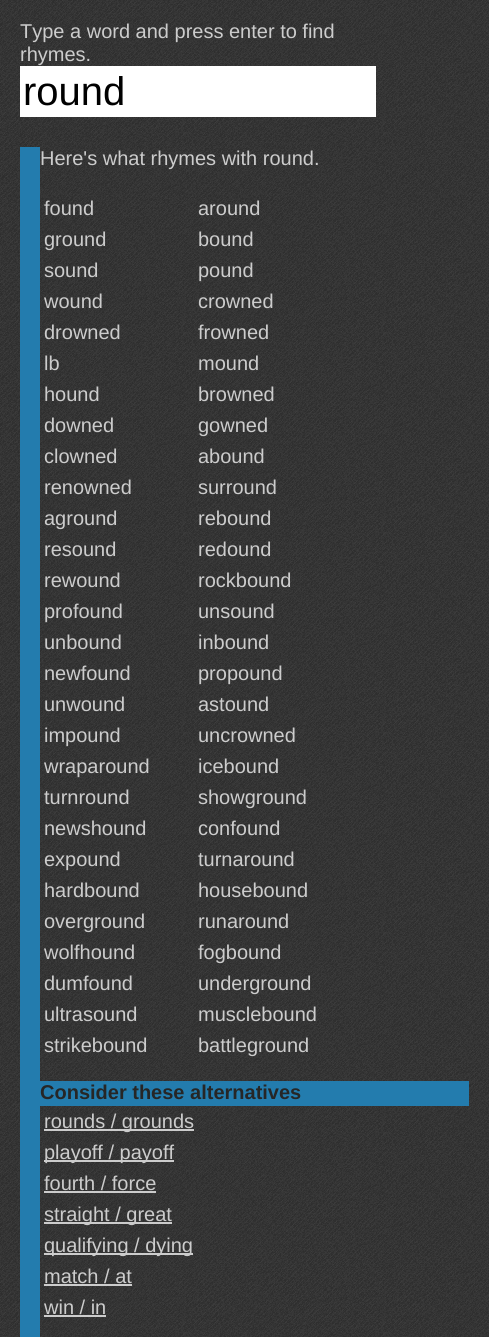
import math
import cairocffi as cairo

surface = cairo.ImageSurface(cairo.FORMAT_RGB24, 489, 1337)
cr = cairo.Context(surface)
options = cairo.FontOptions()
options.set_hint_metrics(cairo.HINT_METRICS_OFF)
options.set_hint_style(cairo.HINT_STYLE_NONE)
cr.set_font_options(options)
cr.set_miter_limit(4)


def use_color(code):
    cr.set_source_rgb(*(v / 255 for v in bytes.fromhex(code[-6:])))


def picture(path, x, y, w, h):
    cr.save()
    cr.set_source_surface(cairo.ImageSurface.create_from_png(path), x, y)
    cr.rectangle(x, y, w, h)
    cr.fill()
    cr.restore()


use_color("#ffffff")
cr.paint()
picture("img1.png", 0, 0, 489, 1337)
cr.select_font_face("Liberation Sans")
cr.set_font_size(20)
use_color("#cccccc")
cr.move_to(20, 38)
cr.show_text("Type a word and press enter to find")
cr.move_to(20, 61)
cr.show_text("rhymes.")
use_color("#ffffff")
cr.rectangle(20, 66, 356, 51)
cr.fill()
cr.set_font_size(40)
use_color("#000000")
cr.move_to(23, 105)
cr.show_text("round")
use_color("#237cae")
cr.rectangle(20, 147, 20, 1190)
cr.fill()
cr.set_font_size(20)
use_color("#cccccc")
cr.move_to(40, 165)
cr.show_text("Here's what rhymes with round.")
cr.move_to(44, 215)
cr.show_text("found")
cr.move_to(198, 215)
cr.show_text("around")
cr.move_to(44, 246)
cr.show_text("ground")
cr.move_to(198, 246)
cr.show_text("bound")
cr.move_to(44, 277)
cr.show_text("sound")
cr.move_to(198, 277)
cr.show_text("pound")
cr.move_to(44, 308)
cr.show_text("wound")
cr.move_to(198, 308)
cr.show_text("crowned")
cr.move_to(44, 339)
cr.show_text("drowned")
cr.move_to(198, 339)
cr.show_text("frowned")
cr.move_to(44, 370)
cr.show_text("lb")
cr.move_to(198, 370)
cr.show_text("mound")
cr.move_to(44, 401)
cr.show_text("hound")
cr.move_to(198, 401)
cr.show_text("browned")
cr.move_to(44, 432)
cr.show_text("downed")
cr.move_to(198, 432)
cr.show_text("gowned")
cr.move_to(44, 463)
cr.show_text("clowned")
cr.move_to(198, 463)
cr.show_text("abound")
cr.move_to(44, 494)
cr.show_text("renowned")
cr.move_to(198, 494)
cr.show_text("surround")
cr.move_to(44, 525)
cr.show_text("aground")
cr.move_to(198, 525)
cr.show_text("rebound")
cr.move_to(44, 556)
cr.show_text("resound")
cr.move_to(198, 556)
cr.show_text("redound")
cr.move_to(44, 587)
cr.show_text("rewound")
cr.move_to(198, 587)
cr.show_text("rockbound")
cr.move_to(44, 618)
cr.show_text("profound")
cr.move_to(198, 618)
cr.show_text("unsound")
cr.move_to(44, 649)
cr.show_text("unbound")
cr.move_to(198, 649)
cr.show_text("inbound")
cr.move_to(44, 680)
cr.show_text("newfound")
cr.move_to(198, 680)
cr.show_text("propound")
cr.move_to(44, 711)
cr.show_text("unwound")
cr.move_to(198, 711)
cr.show_text("astound")
cr.move_to(44, 742)
cr.show_text("impound")
cr.move_to(198, 742)
cr.show_text("uncrowned")
cr.move_to(44, 773)
cr.show_text("wraparound")
cr.move_to(198, 773)
cr.show_text("icebound")
cr.move_to(44, 804)
cr.show_text("turnround")
cr.move_to(198, 804)
cr.show_text("showground")
cr.move_to(44, 835)
cr.show_text("newshound")
cr.move_to(198, 835)
cr.show_text("confound")
cr.move_to(44, 866)
cr.show_text("expound")
cr.move_to(198, 866)
cr.show_text("turnaround")
cr.move_to(44, 897)
cr.show_text("hardbound")
cr.move_to(198, 897)
cr.show_text("housebound")
cr.move_to(44, 928)
cr.show_text("overground")
cr.move_to(198, 928)
cr.show_text("runaround")
cr.move_to(44, 959)
cr.show_text("wolfhound")
cr.move_to(198, 959)
cr.show_text("fogbound")
cr.move_to(44, 990)
cr.show_text("dumfound")
cr.move_to(198, 990)
cr.show_text("underground")
cr.move_to(44, 1021)
cr.show_text("ultrasound")
cr.move_to(198, 1021)
cr.show_text("musclebound")
cr.move_to(44, 1052)
cr.show_text("strikebound")
cr.move_to(198, 1052)
cr.show_text("battleground")
use_color("#237cae")
cr.rectangle(40, 1081, 429, 25)
cr.fill()
cr.select_font_face("Liberation Sans", cairo.FONT_SLANT_NORMAL, cairo.FONT_WEIGHT_BOLD)
use_color("#262626")
cr.move_to(40, 1099)
cr.show_text("Consider these alternatives")
use_color("#cccccc")
cr.rectangle(44, 1129, 150, 2)
cr.fill()
cr.select_font_face("Liberation Sans")
cr.move_to(44, 1128)
cr.show_text("rounds / grounds")
cr.rectangle(44, 1160, 130, 2)
cr.fill()
cr.move_to(44, 1159)
cr.show_text("playoff / payoff")
cr.move_to(44, 1190)
cr.show_text("fourth / force")
cr.rectangle(44, 1191, 112, 2)
cr.fill()
cr.rectangle(44, 1222, 128, 2)
cr.fill()
cr.move_to(44, 1221)
cr.show_text("straight / great")
cr.rectangle(44, 1253, 149, 2)
cr.fill()
cr.move_to(44, 1252)
cr.show_text("qualifying / dying")
cr.move_to(44, 1283)
cr.show_text("match / at")
cr.rectangle(44, 1284, 88, 2)
cr.fill()
cr.move_to(44, 1314)
cr.show_text("win / in")
cr.rectangle(44, 1315, 62, 2)
cr.fill()
surface.write_to_png("result.png")
